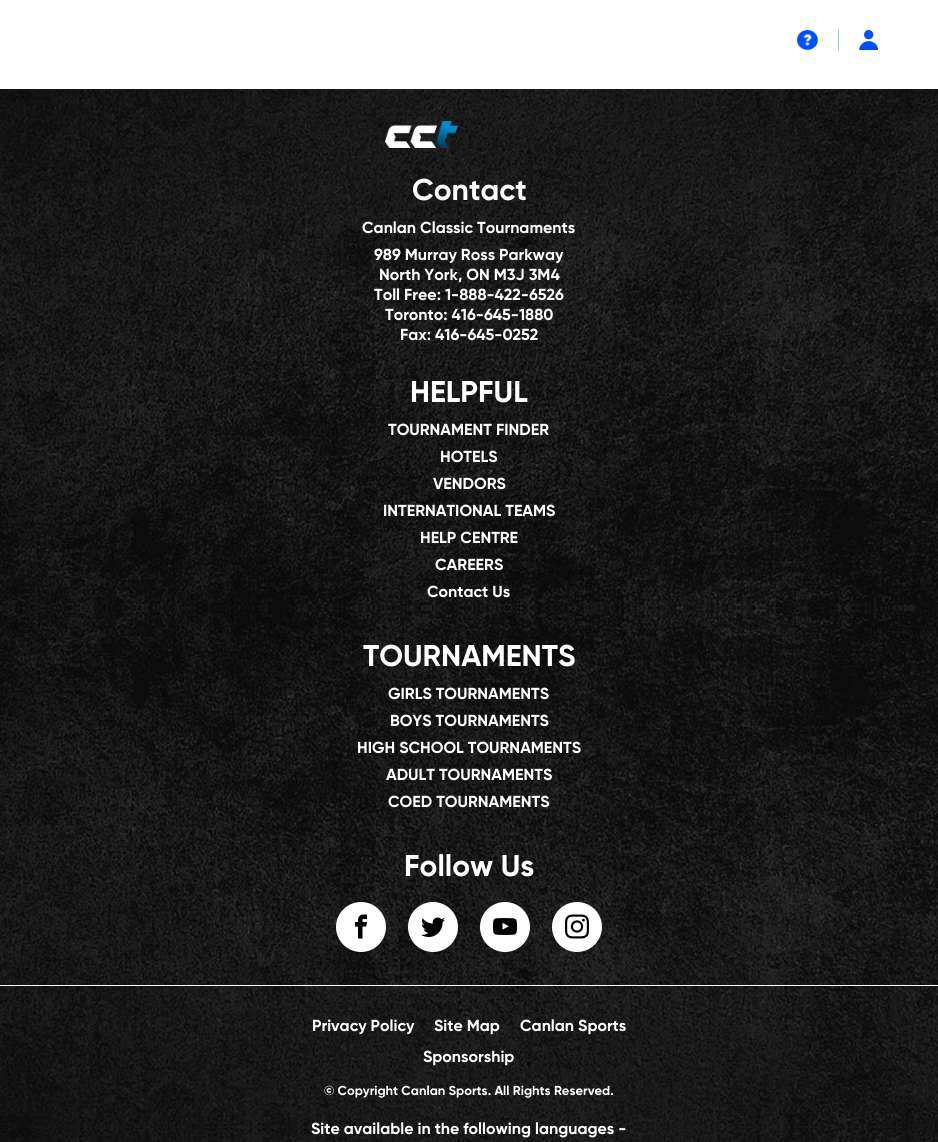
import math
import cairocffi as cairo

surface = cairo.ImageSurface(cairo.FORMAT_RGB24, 938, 1142)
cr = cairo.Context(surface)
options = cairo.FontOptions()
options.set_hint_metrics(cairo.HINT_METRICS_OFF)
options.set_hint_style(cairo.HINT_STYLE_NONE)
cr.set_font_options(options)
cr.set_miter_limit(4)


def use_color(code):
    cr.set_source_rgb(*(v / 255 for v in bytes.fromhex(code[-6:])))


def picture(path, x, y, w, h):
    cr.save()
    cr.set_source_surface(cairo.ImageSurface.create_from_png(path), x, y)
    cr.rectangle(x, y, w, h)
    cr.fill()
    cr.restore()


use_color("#ffffff")
cr.paint()
picture("img1.png", 797, 30, 21, 20)
use_color("#a0bdfe")
cr.rectangle(838, 30, 1, 20)
cr.fill()
picture("img2.png", 859, 30, 19, 20)
picture("img3.png", 0, 89, 938, 1053)
picture("img4.png", 385, 121, 73, 27)
cr.select_font_face("Gilroy")
cr.set_font_size(30)
use_color("#ffffff")
cr.move_to(412, 200)
cr.show_text("Contact")
cr.set_font_size(16)
cr.move_to(362, 233)
cr.show_text("Canlan Classic Tournaments")
cr.move_to(374, 260)
cr.show_text("989 Murray Ross Parkway")
cr.move_to(379, 280)
cr.show_text("North York, ON M3J 3M4")
cr.move_to(374, 300)
cr.show_text("Toll Free: 1-888-422-6526")
cr.move_to(385, 320)
cr.show_text("Toronto: 416-645-1880")
cr.move_to(400, 340)
cr.show_text("Fax: 416-645-0252")
cr.set_font_size(30)
cr.move_to(410, 402)
cr.show_text("HELPFUL")
cr.set_font_size(16)
cr.move_to(388, 435)
cr.show_text("TOURNAMENT FINDER")
cr.move_to(440, 462)
cr.show_text("HOTELS")
cr.move_to(433, 489)
cr.show_text("VENDORS")
cr.move_to(383, 516)
cr.show_text("INTERNATIONAL TEAMS")
cr.move_to(420, 543)
cr.show_text("HELP CENTRE")
cr.move_to(435, 570)
cr.show_text("CAREERS")
cr.move_to(427, 597)
cr.show_text("Contact Us")
cr.set_font_size(30)
cr.move_to(363, 666)
cr.show_text("TOURNAMENTS")
cr.set_font_size(16)
cr.move_to(388, 699)
cr.show_text("GIRLS TOURNAMENTS")
cr.move_to(390, 726)
cr.show_text("BOYS TOURNAMENTS")
cr.move_to(357, 753)
cr.show_text("HIGH SCHOOL TOURNAMENTS")
cr.move_to(386, 780)
cr.show_text("ADULT TOURNAMENTS")
cr.move_to(388, 807)
cr.show_text("COED TOURNAMENTS")
cr.set_font_size(30)
cr.move_to(404, 876)
cr.show_text("Follow Us")
cr.new_path()
cr.arc(361, 927, 25, 0, 2 * math.pi)
cr.fill()
picture("img5.png", 355, 914, 12, 25)
cr.arc(433, 927, 25, 0, 2 * math.pi)
cr.fill()
picture("img6.png", 421, 917, 24, 20)
cr.arc(505, 927, 25, 0, 2 * math.pi)
cr.fill()
picture("img7.png", 493, 918, 24, 17)
cr.arc(577, 927, 25, 0, 2 * math.pi)
cr.fill()
picture("img8.png", 565, 914, 24, 25)
cr.rectangle(0, 985, 938, 1)
cr.fill()
cr.set_font_size(16)
cr.move_to(312, 1031)
cr.show_text("Privacy Policy")
cr.move_to(434, 1031)
cr.show_text("Site Map")
cr.move_to(520, 1031)
cr.show_text("Canlan Sports")
cr.move_to(423, 1062)
cr.show_text("Sponsorship")
cr.set_font_size(13)
cr.move_to(324, 1095)
cr.show_text("© Copyright Canlan Sports. All Rights Reserved.")
cr.set_font_size(16)
cr.move_to(311, 1134)
cr.show_text("Site available in the following languages -")
surface.write_to_png("result.png")
